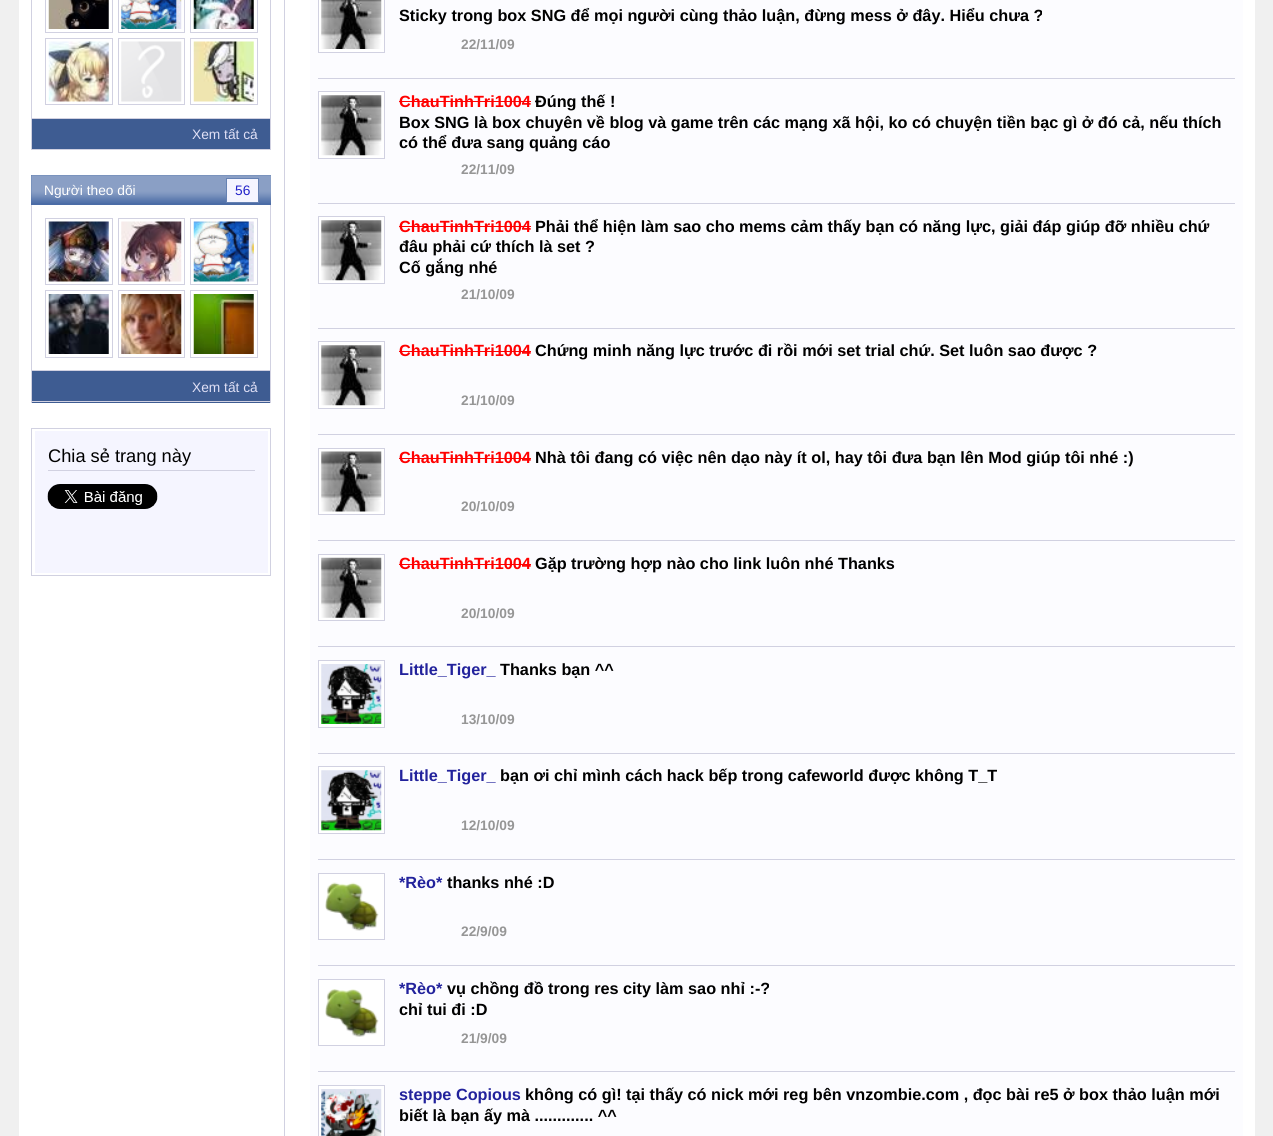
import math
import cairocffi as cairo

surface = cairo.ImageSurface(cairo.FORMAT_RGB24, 1273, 1136)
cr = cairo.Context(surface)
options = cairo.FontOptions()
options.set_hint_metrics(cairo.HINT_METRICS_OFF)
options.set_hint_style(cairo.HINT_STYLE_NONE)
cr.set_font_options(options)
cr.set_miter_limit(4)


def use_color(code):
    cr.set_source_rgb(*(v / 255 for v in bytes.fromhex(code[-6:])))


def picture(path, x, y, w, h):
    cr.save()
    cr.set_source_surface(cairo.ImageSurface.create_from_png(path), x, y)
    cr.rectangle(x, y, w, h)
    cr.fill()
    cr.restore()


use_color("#f0f0f0")
cr.paint()
use_color("#ffffff")
cr.rectangle(19, 0, 1236, 1136)
cr.fill()
use_color("#d1d1e1")
cr.rectangle(270, 0, 1, 150)
cr.fill()
cr.rectangle(31, 118, 240, 1)
cr.fill()
cr.rectangle(31, 0, 1, 119)
cr.fill()
picture("img1.png", 48, 0, 61, 29)
cr.rectangle(45.5, -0.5, 67, 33)
cr.set_line_width(1)
cr.stroke()
picture("img2.png", 121, 0, 61, 29)
cr.rectangle(118.5, -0.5, 66, 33)
cr.stroke()
picture("img3.png", 193, 0, 61, 29)
cr.rectangle(190.5, -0.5, 67, 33)
cr.stroke()
picture("img4.png", 48, 41, 61, 61)
cr.rectangle(45.5, 38.5, 67, 66)
cr.stroke()
picture("img5.png", 121, 41, 61, 61)
cr.rectangle(118.5, 38.5, 66, 66)
cr.stroke()
picture("img6.png", 193, 41, 61, 61)
cr.rectangle(190.5, 38.5, 67, 66)
cr.stroke()
use_color("#3e5c92")
cr.rectangle(32, 119, 238, 30)
cr.fill()
use_color("#d1d1e1")
cr.rectangle(31, 149, 240, 1)
cr.fill()
cr.rectangle(31, 119, 1, 31)
cr.fill()
cr.select_font_face("Liberation Sans")
cr.set_font_size(13.75)
use_color("#e0e0f6")
cr.move_to(192, 139)
cr.show_text("Xem tất cả")
use_color("#4b6ca6")
cr.rectangle(31, 175, 240, 30)
cr.fill()
picture("img7.png", 31, 175, 240, 28)
use_color("#ffffff")
cr.move_to(44, 195)
cr.show_text("Người theo dõi")
use_color("#f5f5ff")
cr.rectangle(226.5, 178.5, 32, 24)
cr.fill_preserve()
use_color("#6682b3")
cr.stroke()
use_color("#2222c9")
cr.move_to(235, 195)
cr.show_text("56")
use_color("#d1d1e1")
cr.rectangle(270, 205, 1, 198)
cr.fill()
cr.rectangle(31, 370, 240, 1)
cr.fill()
cr.rectangle(31, 205, 1, 166)
cr.fill()
picture("img8.png", 48, 221, 61, 61)
cr.rectangle(45.5, 218.5, 67, 66)
cr.stroke()
picture("img9.png", 121, 221, 61, 61)
cr.rectangle(118.5, 218.5, 66, 66)
cr.stroke()
picture("img10.png", 193, 221, 61, 61)
cr.rectangle(190.5, 218.5, 67, 66)
cr.stroke()
picture("img11.png", 48, 294, 61, 60)
cr.rectangle(45.5, 290.5, 67, 67)
cr.stroke()
picture("img12.png", 121, 294, 61, 60)
cr.rectangle(118.5, 290.5, 66, 67)
cr.stroke()
picture("img13.png", 193, 294, 61, 60)
cr.rectangle(190.5, 290.5, 67, 67)
cr.stroke()
use_color("#3e5c92")
cr.rectangle(32, 371, 238, 32)
cr.fill()
use_color("#d1d1e1")
cr.rectangle(31, 401, 240, 1)
cr.fill()
cr.rectangle(31, 371, 1, 32)
cr.fill()
use_color("#e0e0f6")
cr.move_to(192, 392)
cr.show_text("Xem tất cả")
cr.rectangle(31.5, 428.5, 239, 147)
use_color("#d1d1e1")
cr.stroke()
use_color("#f5f5ff")
cr.rectangle(35, 431, 233, 142)
cr.fill()
use_color("#d1d1e1")
cr.rectangle(48, 470, 207, 1)
cr.fill()
cr.set_font_size(18.25)
use_color("#000000")
cr.move_to(48, 462)
cr.show_text("Chia sẻ trang này")
picture("img14.png", 47, 484, 111, 25)
use_color("#d1d1e1")
cr.rectangle(284, 0, 1, 1136)
cr.fill()
use_color("#fcfcff")
cr.rectangle(310, 0, 933, 1136)
cr.fill()
use_color("#d1d1e1")
cr.rectangle(318, 78, 917, 1)
cr.fill()
use_color("#ffffff")
cr.rectangle(318.5, -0.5, 66, 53)
cr.fill_preserve()
use_color("#d1d1e1")
cr.stroke()
picture("img15.png", 321, 0, 61, 49)
cr.select_font_face("Liberation Sans", cairo.FONT_SLANT_NORMAL, cairo.FONT_WEIGHT_BOLD)
cr.set_font_size(16.25)
use_color("#000000")
cr.move_to(399, 21)
cr.show_text("Sticky trong box SNG để mọi người cùng thảo luận, đừng mess ở đây. Hiểu chưa ?")
cr.set_font_size(13.75)
use_color("#969696")
cr.move_to(461, 49)
cr.show_text("22/11/09")
use_color("#d1d1e1")
cr.rectangle(318, 203, 917, 1)
cr.fill()
use_color("#ffffff")
cr.rectangle(318.5, 91.5, 66, 67)
cr.fill_preserve()
use_color("#d1d1e1")
cr.stroke()
picture("img16.png", 321, 95, 61, 61)
cr.set_font_size(16.25)
use_color("#ff0000")
cr.move_to(399, 107)
cr.show_text("ChauTinhTri1004")
cr.rectangle(399, 101, 132, 1)
cr.fill()
use_color("#000000")
cr.move_to(535, 107)
cr.show_text("Đúng thế !")
cr.move_to(399, 128)
cr.show_text("Box SNG là box chuyên về blog và game trên các mạng xã hội, ko có chuyện tiền bạc gì ở đó cả, nếu thích")
cr.move_to(399, 148)
cr.show_text("có thể đưa sang quảng cáo")
cr.set_font_size(13.75)
use_color("#969696")
cr.move_to(461, 174)
cr.show_text("22/11/09")
use_color("#d1d1e1")
cr.rectangle(318, 328, 917, 1)
cr.fill()
use_color("#ffffff")
cr.rectangle(318.5, 216.5, 66, 67)
cr.fill_preserve()
use_color("#d1d1e1")
cr.stroke()
picture("img16.png", 321, 220, 61, 61)
cr.set_font_size(16.25)
use_color("#ff0000")
cr.move_to(399, 232)
cr.show_text("ChauTinhTri1004")
cr.rectangle(399, 226, 132, 1)
cr.fill()
use_color("#000000")
cr.move_to(535, 232)
cr.show_text("Phải thể hiện làm sao cho mems cảm thấy bạn có năng lực, giải đáp giúp đỡ nhiều chứ")
cr.move_to(399, 252)
cr.show_text("đâu phải cứ thích là set ?")
cr.move_to(399, 273)
cr.show_text("Cố gắng nhé")
cr.set_font_size(13.75)
use_color("#969696")
cr.move_to(461, 299)
cr.show_text("21/10/09")
use_color("#d1d1e1")
cr.rectangle(318, 434, 917, 1)
cr.fill()
use_color("#ffffff")
cr.rectangle(318.5, 341.5, 66, 67)
cr.fill_preserve()
use_color("#d1d1e1")
cr.stroke()
picture("img16.png", 321, 345, 61, 61)
cr.set_font_size(16.25)
use_color("#ff0000")
cr.move_to(399, 356)
cr.show_text("ChauTinhTri1004")
cr.rectangle(399, 351, 132, 1)
cr.fill()
use_color("#000000")
cr.move_to(535, 356)
cr.show_text("Chứng minh năng lực trước đi rồi mới set trial chứ. Set luôn sao được ?")
cr.set_font_size(13.75)
use_color("#969696")
cr.move_to(461, 405)
cr.show_text("21/10/09")
use_color("#d1d1e1")
cr.rectangle(318, 540, 917, 1)
cr.fill()
use_color("#ffffff")
cr.rectangle(318.5, 448.5, 66, 66)
cr.fill_preserve()
use_color("#d1d1e1")
cr.stroke()
picture("img17.png", 321, 451, 61, 61)
cr.set_font_size(16.25)
use_color("#ff0000")
cr.move_to(399, 463)
cr.show_text("ChauTinhTri1004")
cr.rectangle(399, 458, 132, 1)
cr.fill()
use_color("#000000")
cr.move_to(535, 463)
cr.show_text("Nhà tôi đang có việc nên dạo này ít ol, hay tôi đưa bạn lên Mod giúp tôi nhé :)")
cr.set_font_size(13.75)
use_color("#969696")
cr.move_to(461, 511)
cr.show_text("20/10/09")
use_color("#d1d1e1")
cr.rectangle(318, 646, 917, 1)
cr.fill()
use_color("#ffffff")
cr.rectangle(318.5, 554.5, 66, 66)
cr.fill_preserve()
use_color("#d1d1e1")
cr.stroke()
picture("img18.png", 321, 557, 61, 61)
cr.set_font_size(16.25)
use_color("#ff0000")
cr.move_to(399, 569)
cr.show_text("ChauTinhTri1004")
cr.rectangle(399, 564, 132, 1)
cr.fill()
use_color("#000000")
cr.move_to(535, 569)
cr.show_text("Gặp trường hợp nào cho link luôn nhé Thanks")
cr.set_font_size(13.75)
use_color("#969696")
cr.move_to(461, 618)
cr.show_text("20/10/09")
use_color("#d1d1e1")
cr.rectangle(318, 753, 917, 1)
cr.fill()
use_color("#ffffff")
cr.rectangle(318.5, 660.5, 66, 67)
cr.fill_preserve()
use_color("#d1d1e1")
cr.stroke()
picture("img19.png", 321, 664, 61, 60)
cr.set_font_size(16.25)
use_color("#22229c")
cr.move_to(399, 675)
cr.show_text("Little_Tiger_")
use_color("#000000")
cr.move_to(500, 675)
cr.show_text("Thanks bạn ^^")
cr.set_font_size(13.75)
use_color("#969696")
cr.move_to(461, 724)
cr.show_text("13/10/09")
use_color("#d1d1e1")
cr.rectangle(318, 859, 917, 1)
cr.fill()
use_color("#ffffff")
cr.rectangle(318.5, 766.5, 66, 67)
cr.fill_preserve()
use_color("#d1d1e1")
cr.stroke()
picture("img20.png", 321, 770, 61, 61)
cr.set_font_size(16.25)
use_color("#22229c")
cr.move_to(399, 781)
cr.show_text("Little_Tiger_")
use_color("#000000")
cr.move_to(500, 781)
cr.show_text("bạn ơi chỉ mình cách hack bếp trong cafeworld được không T_T")
cr.set_font_size(13.75)
use_color("#969696")
cr.move_to(461, 830)
cr.show_text("12/10/09")
use_color("#d1d1e1")
cr.rectangle(318, 965, 917, 1)
cr.fill()
use_color("#ffffff")
cr.rectangle(318.5, 873.5, 66, 66)
cr.fill_preserve()
use_color("#d1d1e1")
cr.stroke()
picture("img21.png", 325, 882, 54, 49)
cr.set_font_size(16.25)
use_color("#22229c")
cr.move_to(399, 888)
cr.show_text("*Rèo*")
use_color("#000000")
cr.move_to(447, 888)
cr.show_text("thanks nhé :D")
cr.set_font_size(13.75)
use_color("#969696")
cr.move_to(461, 936)
cr.show_text("22/9/09")
use_color("#d1d1e1")
cr.rectangle(318, 1071, 917, 1)
cr.fill()
use_color("#ffffff")
cr.rectangle(318.5, 979.5, 66, 66)
cr.fill_preserve()
use_color("#d1d1e1")
cr.stroke()
picture("img22.png", 325, 989, 54, 48)
cr.set_font_size(16.25)
use_color("#22229c")
cr.move_to(399, 994)
cr.show_text("*Rèo*")
use_color("#000000")
cr.move_to(447, 994)
cr.show_text("vụ chồng đồ trong res city làm sao nhỉ :-?")
cr.move_to(399, 1015)
cr.show_text("chỉ tui đi :D")
cr.set_font_size(13.75)
use_color("#969696")
cr.move_to(461, 1043)
cr.show_text("21/9/09")
use_color("#ffffff")
cr.rectangle(318.5, 1085.5, 66, 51)
cr.fill_preserve()
use_color("#d1d1e1")
cr.stroke()
picture("img23.png", 321, 1089, 61, 47)
cr.set_font_size(16.25)
use_color("#22229c")
cr.move_to(399, 1100)
cr.show_text("steppe Copious")
use_color("#000000")
cr.move_to(525, 1100)
cr.show_text("không có gì! tại thấy có nick mới reg bên vnzombie.com , đọc bài re5 ở box thảo luận mới")
cr.move_to(399, 1121)
cr.show_text("biết là bạn ấy mà ............. ^^")
surface.write_to_png("result.png")
